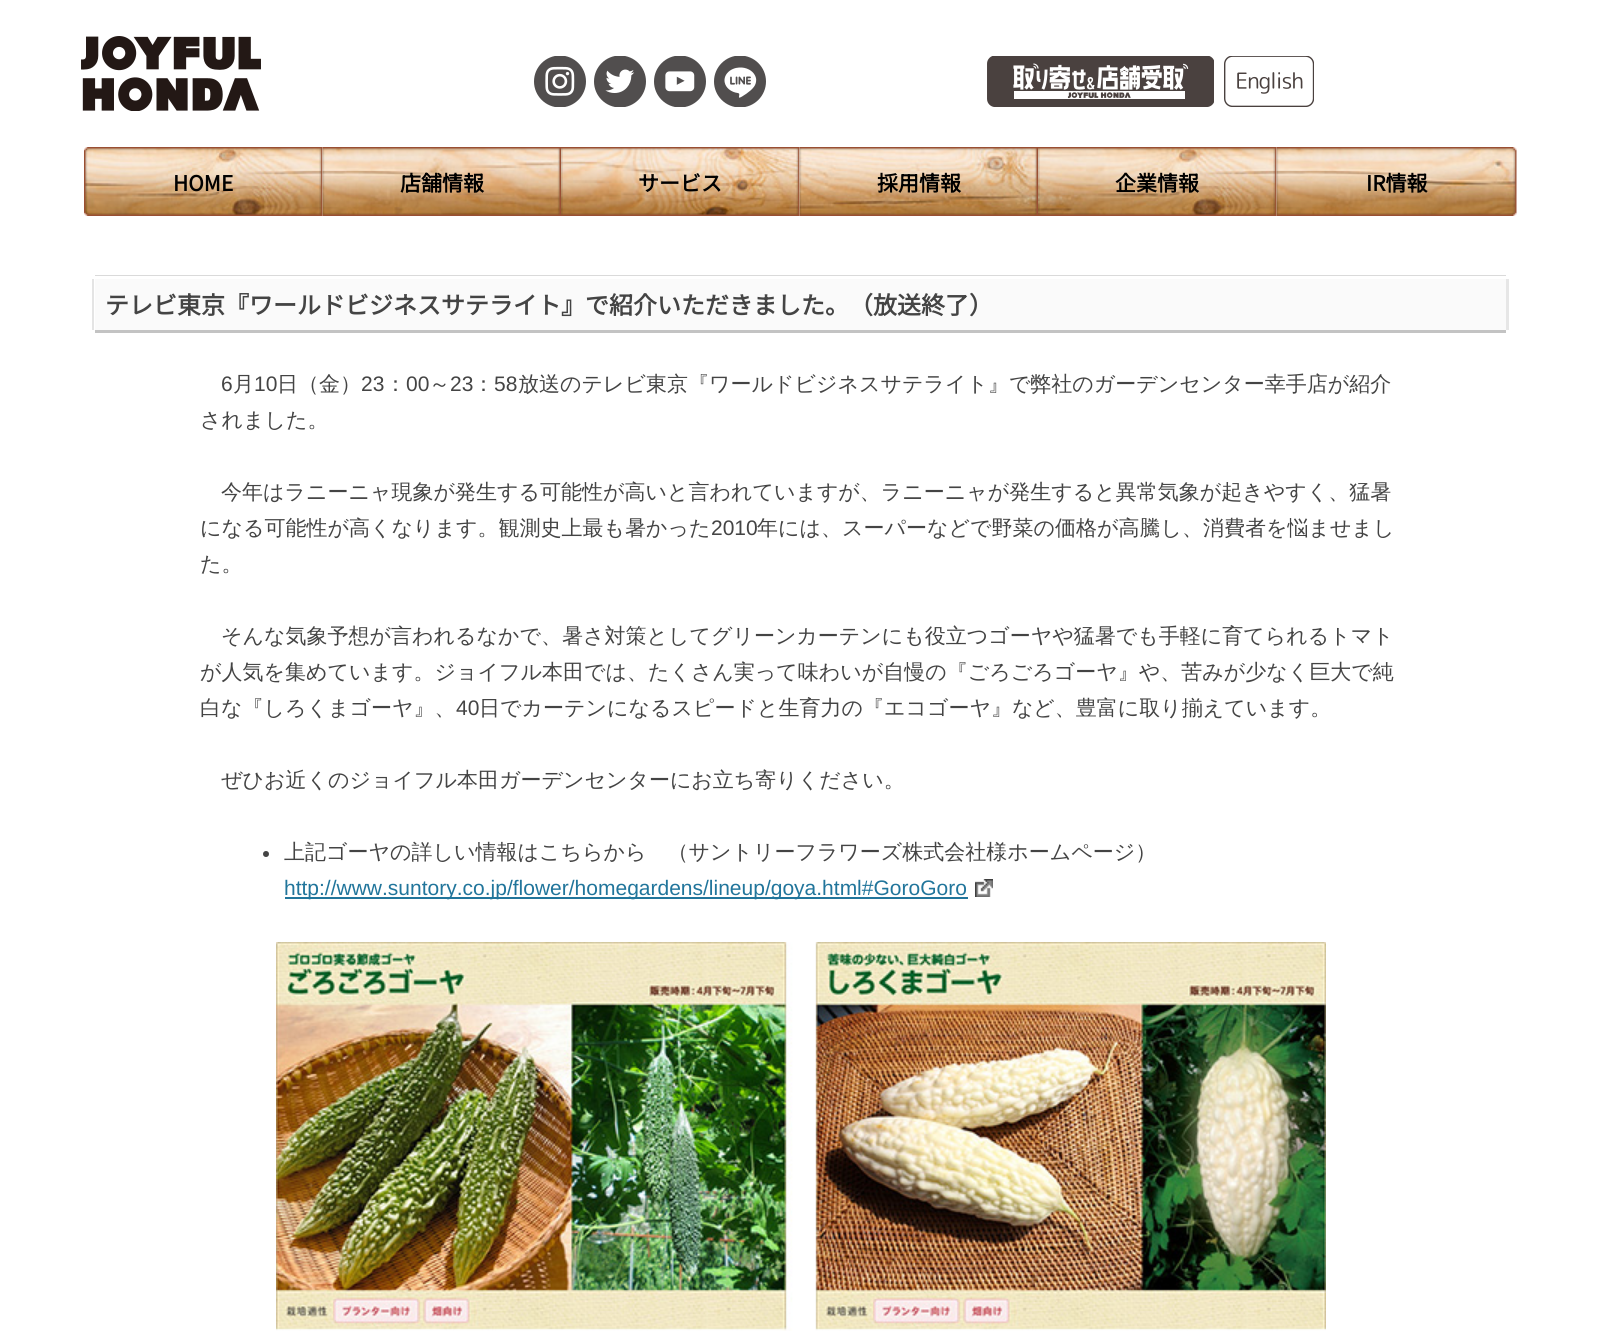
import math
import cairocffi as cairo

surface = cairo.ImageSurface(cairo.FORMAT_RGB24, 1600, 1334)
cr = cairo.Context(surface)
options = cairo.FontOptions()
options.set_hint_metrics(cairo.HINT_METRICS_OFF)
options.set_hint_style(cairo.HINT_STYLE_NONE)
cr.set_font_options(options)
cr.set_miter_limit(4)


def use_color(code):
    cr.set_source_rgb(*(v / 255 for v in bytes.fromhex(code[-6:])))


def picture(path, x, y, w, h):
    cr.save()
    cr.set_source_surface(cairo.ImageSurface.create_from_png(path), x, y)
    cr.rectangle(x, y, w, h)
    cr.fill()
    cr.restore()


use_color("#ffffff")
cr.paint()
picture("img1.png", 81, 36, 180, 75)
picture("img2.png", 534, 56, 52, 51)
picture("img3.png", 594, 56, 52, 51)
picture("img4.png", 654, 56, 52, 51)
picture("img5.png", 714, 56, 52, 51)
picture("img6.png", 987, 56, 227, 51)
picture("img7.png", 1224, 56, 90, 51)
picture("img8.png", 84, 147, 239, 69)
cr.select_font_face("Noto Sans JP", cairo.FONT_SLANT_NORMAL, cairo.FONT_WEIGHT_BOLD)
cr.set_font_size(21)
use_color("#000000")
cr.move_to(173, 191)
cr.show_text("HOME")
picture("img9.png", 322, 147, 239, 69)
cr.move_to(400, 191)
cr.show_text("店舗情報")
picture("img10.png", 561, 147, 239, 69)
cr.move_to(638, 191)
cr.show_text("サービス")
picture("img11.png", 799, 147, 239, 69)
cr.move_to(877, 191)
cr.show_text("採用情報")
picture("img12.png", 1038, 147, 239, 69)
cr.move_to(1115, 191)
cr.show_text("企業情報")
picture("img13.png", 1276, 147, 241, 69)
cr.move_to(1366, 191)
cr.show_text("IR情報")
use_color("#c3c3c3")
cr.rectangle(95, 330, 1411, 3)
cr.fill()
use_color("#e6e6e6")
cr.rectangle(1506, 279, 3, 51)
cr.fill()
use_color("#e4e4e4")
cr.rectangle(92, 279, 2, 51)
cr.fill()
use_color("#dadada")
cr.rectangle(95, 275, 1411, 1)
cr.fill()
use_color("#fafafa")
cr.rectangle(95, 279, 1411, 51)
cr.fill()
cr.set_font_size(24)
use_color("#444444")
cr.move_to(105, 314)
cr.show_text("テレビ東京『ワールドビジネスサテライト』で紹介いただきました。（放送終了）")
cr.select_font_face("Liberation Sans")
cr.set_font_size(21)
cr.move_to(221, 391)
cr.show_text("6")
cr.select_font_face("WenQuanYi Zen Hei Medium")
cr.move_to(233, 391)
cr.show_text("月")
cr.select_font_face("Liberation Sans")
cr.move_to(254, 391)
cr.show_text("10")
cr.select_font_face("WenQuanYi Zen Hei Medium")
cr.move_to(277, 391)
cr.show_text("日（金）")
cr.select_font_face("Liberation Sans")
cr.move_to(361, 391)
cr.show_text("23")
cr.select_font_face("WenQuanYi Zen Hei Medium")
cr.move_to(385, 391)
cr.show_text("：")
cr.select_font_face("Liberation Sans")
cr.move_to(406, 391)
cr.show_text("00")
cr.select_font_face("WenQuanYi Zen Hei Medium")
cr.move_to(429, 391)
cr.show_text("～")
cr.select_font_face("Liberation Sans")
cr.move_to(450, 391)
cr.show_text("23")
cr.select_font_face("WenQuanYi Zen Hei Medium")
cr.move_to(473, 391)
cr.show_text("：")
cr.select_font_face("Liberation Sans")
cr.move_to(494, 391)
cr.show_text("58")
cr.select_font_face("WenQuanYi Zen Hei Medium")
cr.move_to(518, 391)
cr.show_text("放送のテレビ東京『ワールドビジネスサテライト』で弊社のガーデンセンター幸手店が紹介")
cr.move_to(200, 427)
cr.show_text("されました。")
cr.move_to(221, 499)
cr.show_text("今年はラニーニャ現象が発生する可能性が高いと言われていますが、ラニーニャが発生すると異常気象が起きやすく、猛暑")
cr.move_to(200, 535)
cr.show_text("になる可能性が高くなります。観測史上最も暑かった")
cr.select_font_face("Liberation Sans")
cr.move_to(711, 535)
cr.show_text("2010")
cr.select_font_face("WenQuanYi Zen Hei Medium")
cr.move_to(757, 535)
cr.show_text("年には、スーパーなどで野菜の価格が高騰し、消費者を悩ませまし")
cr.move_to(200, 571)
cr.show_text("た。")
cr.move_to(221, 643)
cr.show_text("そんな気象予想が言われるなかで、暑さ対策としてグリーンカーテンにも役立つゴーヤや猛暑でも手軽に育てられるトマト")
cr.move_to(200, 679)
cr.show_text("が人気を集めています。ジョイフル本田では、たくさん実って味わいが自慢の『ごろごろゴーヤ』や、苦みが少なく巨大で純")
cr.move_to(200, 715)
cr.show_text("白な『しろくまゴーヤ』、")
cr.select_font_face("Liberation Sans")
cr.move_to(456, 715)
cr.show_text("40")
cr.select_font_face("WenQuanYi Zen Hei Medium")
cr.move_to(479, 715)
cr.show_text("日でカーテンになるスピードと生育力の『エコゴーヤ』など、豊富に取り揃えています。")
cr.move_to(221, 787)
cr.show_text("ぜひお近くのジョイフル本田ガーデンセンターにお立ち寄りください。")
cr.new_path()
cr.arc(266, 854, 3, 0, 2 * math.pi)
cr.fill()
cr.move_to(284, 859)
cr.show_text("上記ゴーヤの詳しい情報はこちらから　（サントリーフラワーズ株式会社様ホームページ）")
use_color("#21759b")
cr.rectangle(285, 897, 683, 2)
cr.fill()
cr.select_font_face("Liberation Sans")
cr.move_to(284, 895)
cr.show_text("http://www.suntory.co.jp/flower/homegardens/lineup/goya.html#GoroGoro")
picture("img14.png", 975, 879, 18, 18)
picture("img15.png", 276, 942, 1050, 389)
surface.write_to_png("result.png")
